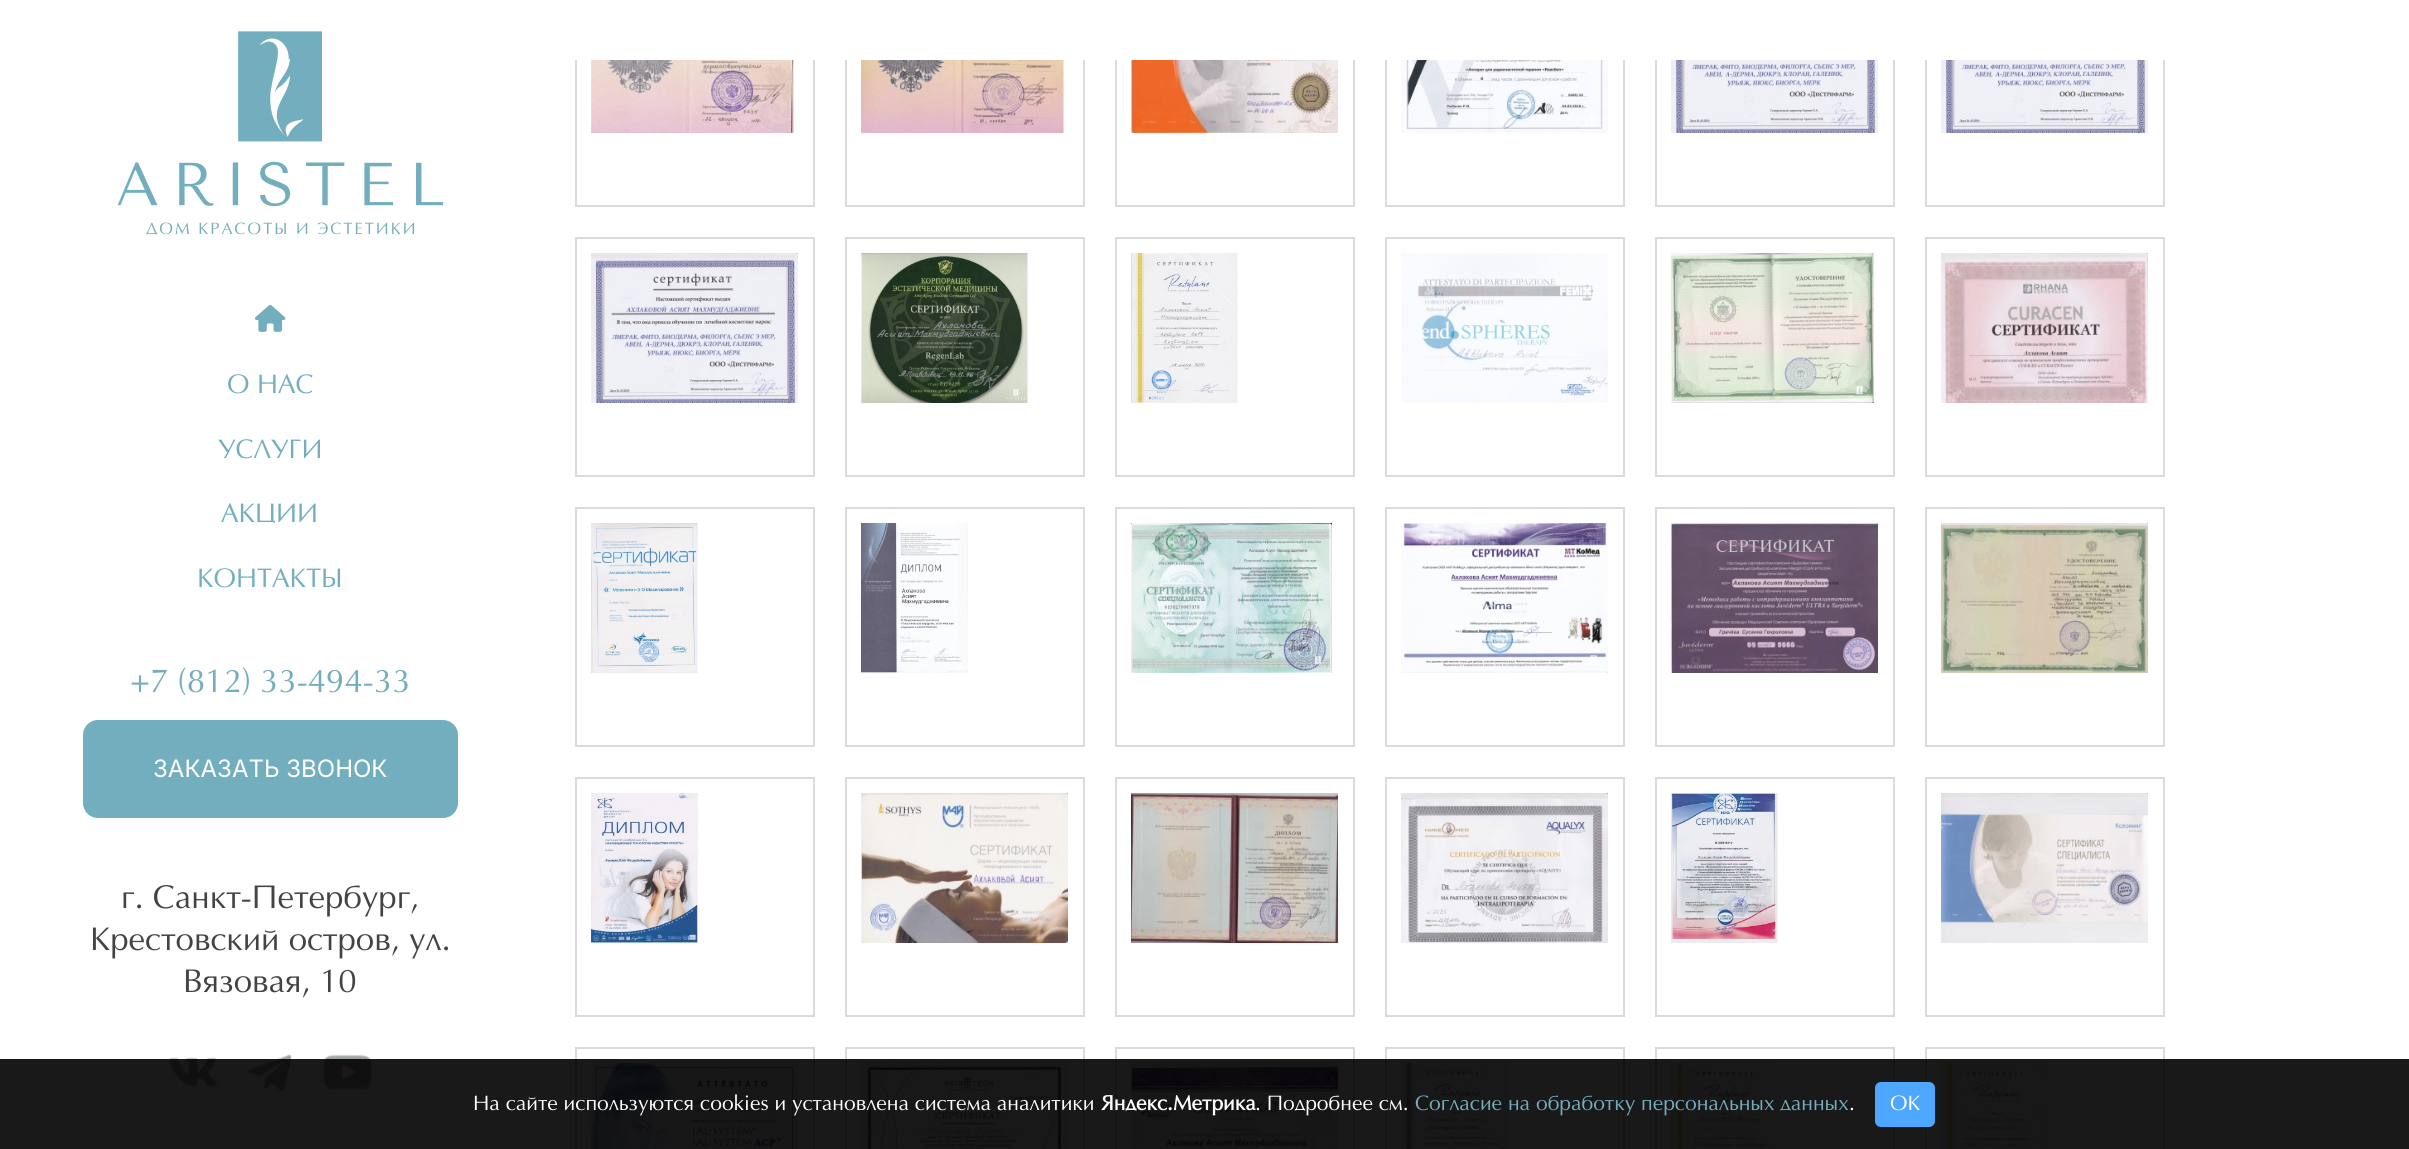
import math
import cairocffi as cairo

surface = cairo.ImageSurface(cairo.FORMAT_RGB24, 2409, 1149)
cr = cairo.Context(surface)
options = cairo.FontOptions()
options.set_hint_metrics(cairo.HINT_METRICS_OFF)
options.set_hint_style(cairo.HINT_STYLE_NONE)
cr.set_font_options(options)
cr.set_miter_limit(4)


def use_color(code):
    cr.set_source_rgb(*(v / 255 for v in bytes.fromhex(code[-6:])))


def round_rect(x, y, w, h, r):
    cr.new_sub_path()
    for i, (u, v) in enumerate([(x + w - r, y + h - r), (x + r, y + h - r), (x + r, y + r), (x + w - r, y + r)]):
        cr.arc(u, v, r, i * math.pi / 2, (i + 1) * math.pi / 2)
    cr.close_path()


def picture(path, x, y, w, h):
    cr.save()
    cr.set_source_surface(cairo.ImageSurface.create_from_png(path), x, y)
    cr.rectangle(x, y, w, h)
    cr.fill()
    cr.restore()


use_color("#ffffff")
cr.paint()
picture("img1.png", 117, 31, 327, 204)
picture("img2.png", 255, 304, 31, 28)
cr.select_font_face("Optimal")
cr.set_font_size(27)
use_color("#73aebe")
cr.move_to(227, 393)
cr.show_text("O НАС")
cr.move_to(218, 458)
cr.show_text("УСЛУГИ")
cr.move_to(221, 522)
cr.show_text("АКЦИИ")
cr.move_to(197, 587)
cr.show_text("КОНТАКТЫ")
cr.set_font_size(33)
cr.move_to(130, 692)
cr.show_text("+7 (812) 33-494-33")
round_rect(83, 720, 375, 98, 15)
cr.fill()
cr.select_font_face("Inter")
cr.set_font_size(24)
use_color("#ffffff")
cr.move_to(153, 777)
cr.show_text("ЗАКАЗАТЬ ЗВОНОК")
cr.select_font_face("Optimal")
cr.set_font_size(33)
use_color("#434343")
cr.move_to(121, 908)
cr.show_text("г. Санкт-Петербург,")
cr.move_to(90, 950)
cr.show_text("Крестовский остров, ул.")
cr.move_to(183, 992)
cr.show_text("Вязовая, 10")
picture("img3.png", 169, 1057, 48, 30)
picture("img4.png", 248, 1054, 44, 38)
picture("img5.png", 323, 1054, 49, 36)
cr.rectangle(576, -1, 238, 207)
use_color("#dadada")
cr.stroke()
cr.rectangle(846, -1, 238, 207)
cr.stroke()
cr.rectangle(1116, -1, 238, 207)
cr.stroke()
cr.rectangle(1386, -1, 238, 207)
cr.stroke()
cr.rectangle(1656, -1, 238, 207)
cr.stroke()
cr.rectangle(1926, -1, 238, 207)
cr.stroke()
use_color("#ffffff")
cr.rectangle(575, 0, 1590, 60)
cr.fill()
picture("img6.png", 591, 60, 203, 73)
picture("img7.png", 861, 60, 203, 73)
picture("img8.png", 1131, 60, 207, 73)
picture("img9.png", 1401, 60, 207, 73)
picture("img10.png", 1671, 60, 207, 73)
picture("img11.png", 1941, 60, 207, 73)
cr.rectangle(576, 238, 238, 238)
use_color("#dadada")
cr.stroke()
picture("img12.png", 591, 253, 207, 150)
cr.rectangle(846, 238, 238, 238)
cr.stroke()
picture("img13.png", 861, 253, 167, 150)
cr.rectangle(1116, 238, 238, 238)
cr.stroke()
picture("img14.png", 1131, 253, 107, 150)
cr.rectangle(1386, 238, 238, 238)
cr.stroke()
picture("img15.png", 1401, 253, 207, 150)
cr.rectangle(1656, 238, 238, 238)
cr.stroke()
picture("img16.png", 1671, 253, 203, 150)
cr.rectangle(1926, 238, 238, 238)
cr.stroke()
picture("img17.png", 1941, 253, 207, 150)
cr.rectangle(576, 508, 238, 238)
cr.stroke()
picture("img18.png", 591, 523, 107, 150)
cr.rectangle(846, 508, 238, 238)
cr.stroke()
picture("img19.png", 861, 523, 107, 150)
cr.rectangle(1116, 508, 238, 238)
cr.stroke()
picture("img20.png", 1131, 523, 201, 150)
cr.rectangle(1386, 508, 238, 238)
cr.stroke()
picture("img21.png", 1401, 523, 207, 150)
cr.rectangle(1656, 508, 238, 238)
cr.stroke()
picture("img22.png", 1671, 523, 207, 150)
cr.rectangle(1926, 508, 238, 238)
cr.stroke()
picture("img23.png", 1941, 523, 207, 150)
cr.rectangle(576, 778, 238, 238)
cr.stroke()
picture("img24.png", 591, 793, 107, 150)
cr.rectangle(846, 778, 238, 238)
cr.stroke()
picture("img25.png", 861, 793, 207, 150)
cr.rectangle(1116, 778, 238, 238)
cr.stroke()
picture("img26.png", 1131, 793, 207, 150)
cr.rectangle(1386, 778, 238, 238)
cr.stroke()
picture("img27.png", 1401, 793, 207, 150)
cr.rectangle(1656, 778, 238, 238)
cr.stroke()
picture("img28.png", 1671, 793, 107, 150)
cr.rectangle(1926, 778, 238, 238)
cr.stroke()
picture("img29.png", 1941, 793, 207, 150)
cr.rectangle(576, 1048, 238, 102)
cr.stroke()
picture("img30.png", 591, 1063, 207, 86)
cr.rectangle(846, 1048, 238, 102)
cr.stroke()
picture("img31.png", 861, 1063, 207, 86)
cr.rectangle(1116, 1048, 238, 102)
cr.stroke()
picture("img32.png", 1131, 1063, 207, 86)
cr.rectangle(1386, 1048, 238, 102)
cr.stroke()
picture("img33.png", 1401, 1063, 107, 86)
cr.rectangle(1656, 1048, 238, 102)
cr.stroke()
picture("img34.png", 1671, 1063, 107, 86)
cr.rectangle(1926, 1048, 238, 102)
cr.stroke()
picture("img35.png", 1941, 1063, 107, 86)
cr.set_source_rgba(0, 0, 0, 0.9)
cr.rectangle(0, 1059, 2409, 90)
cr.fill()
cr.set_font_size(21)
use_color("#ffffff")
cr.move_to(473, 1110)
cr.show_text("На сайте используются cookies и установлена система аналитики")
cr.select_font_face("Optimal", cairo.FONT_SLANT_NORMAL, cairo.FONT_WEIGHT_BOLD)
cr.move_to(1101, 1110)
cr.show_text("Яндекс.Метрика")
cr.select_font_face("Optimal")
cr.move_to(1255, 1110)
cr.show_text(". Подробнее см.")
use_color("#73aebe")
cr.move_to(1415, 1110)
cr.show_text("Согласие на обработку персональных данных")
use_color("#ffffff")
cr.move_to(1849, 1110)
cr.show_text(".")
use_color("#4da6ff")
round_rect(1875, 1082, 60, 45, 6)
cr.fill()
use_color("#ffffff")
cr.move_to(1890, 1110)
cr.show_text("ОК")
surface.write_to_png("result.png")
